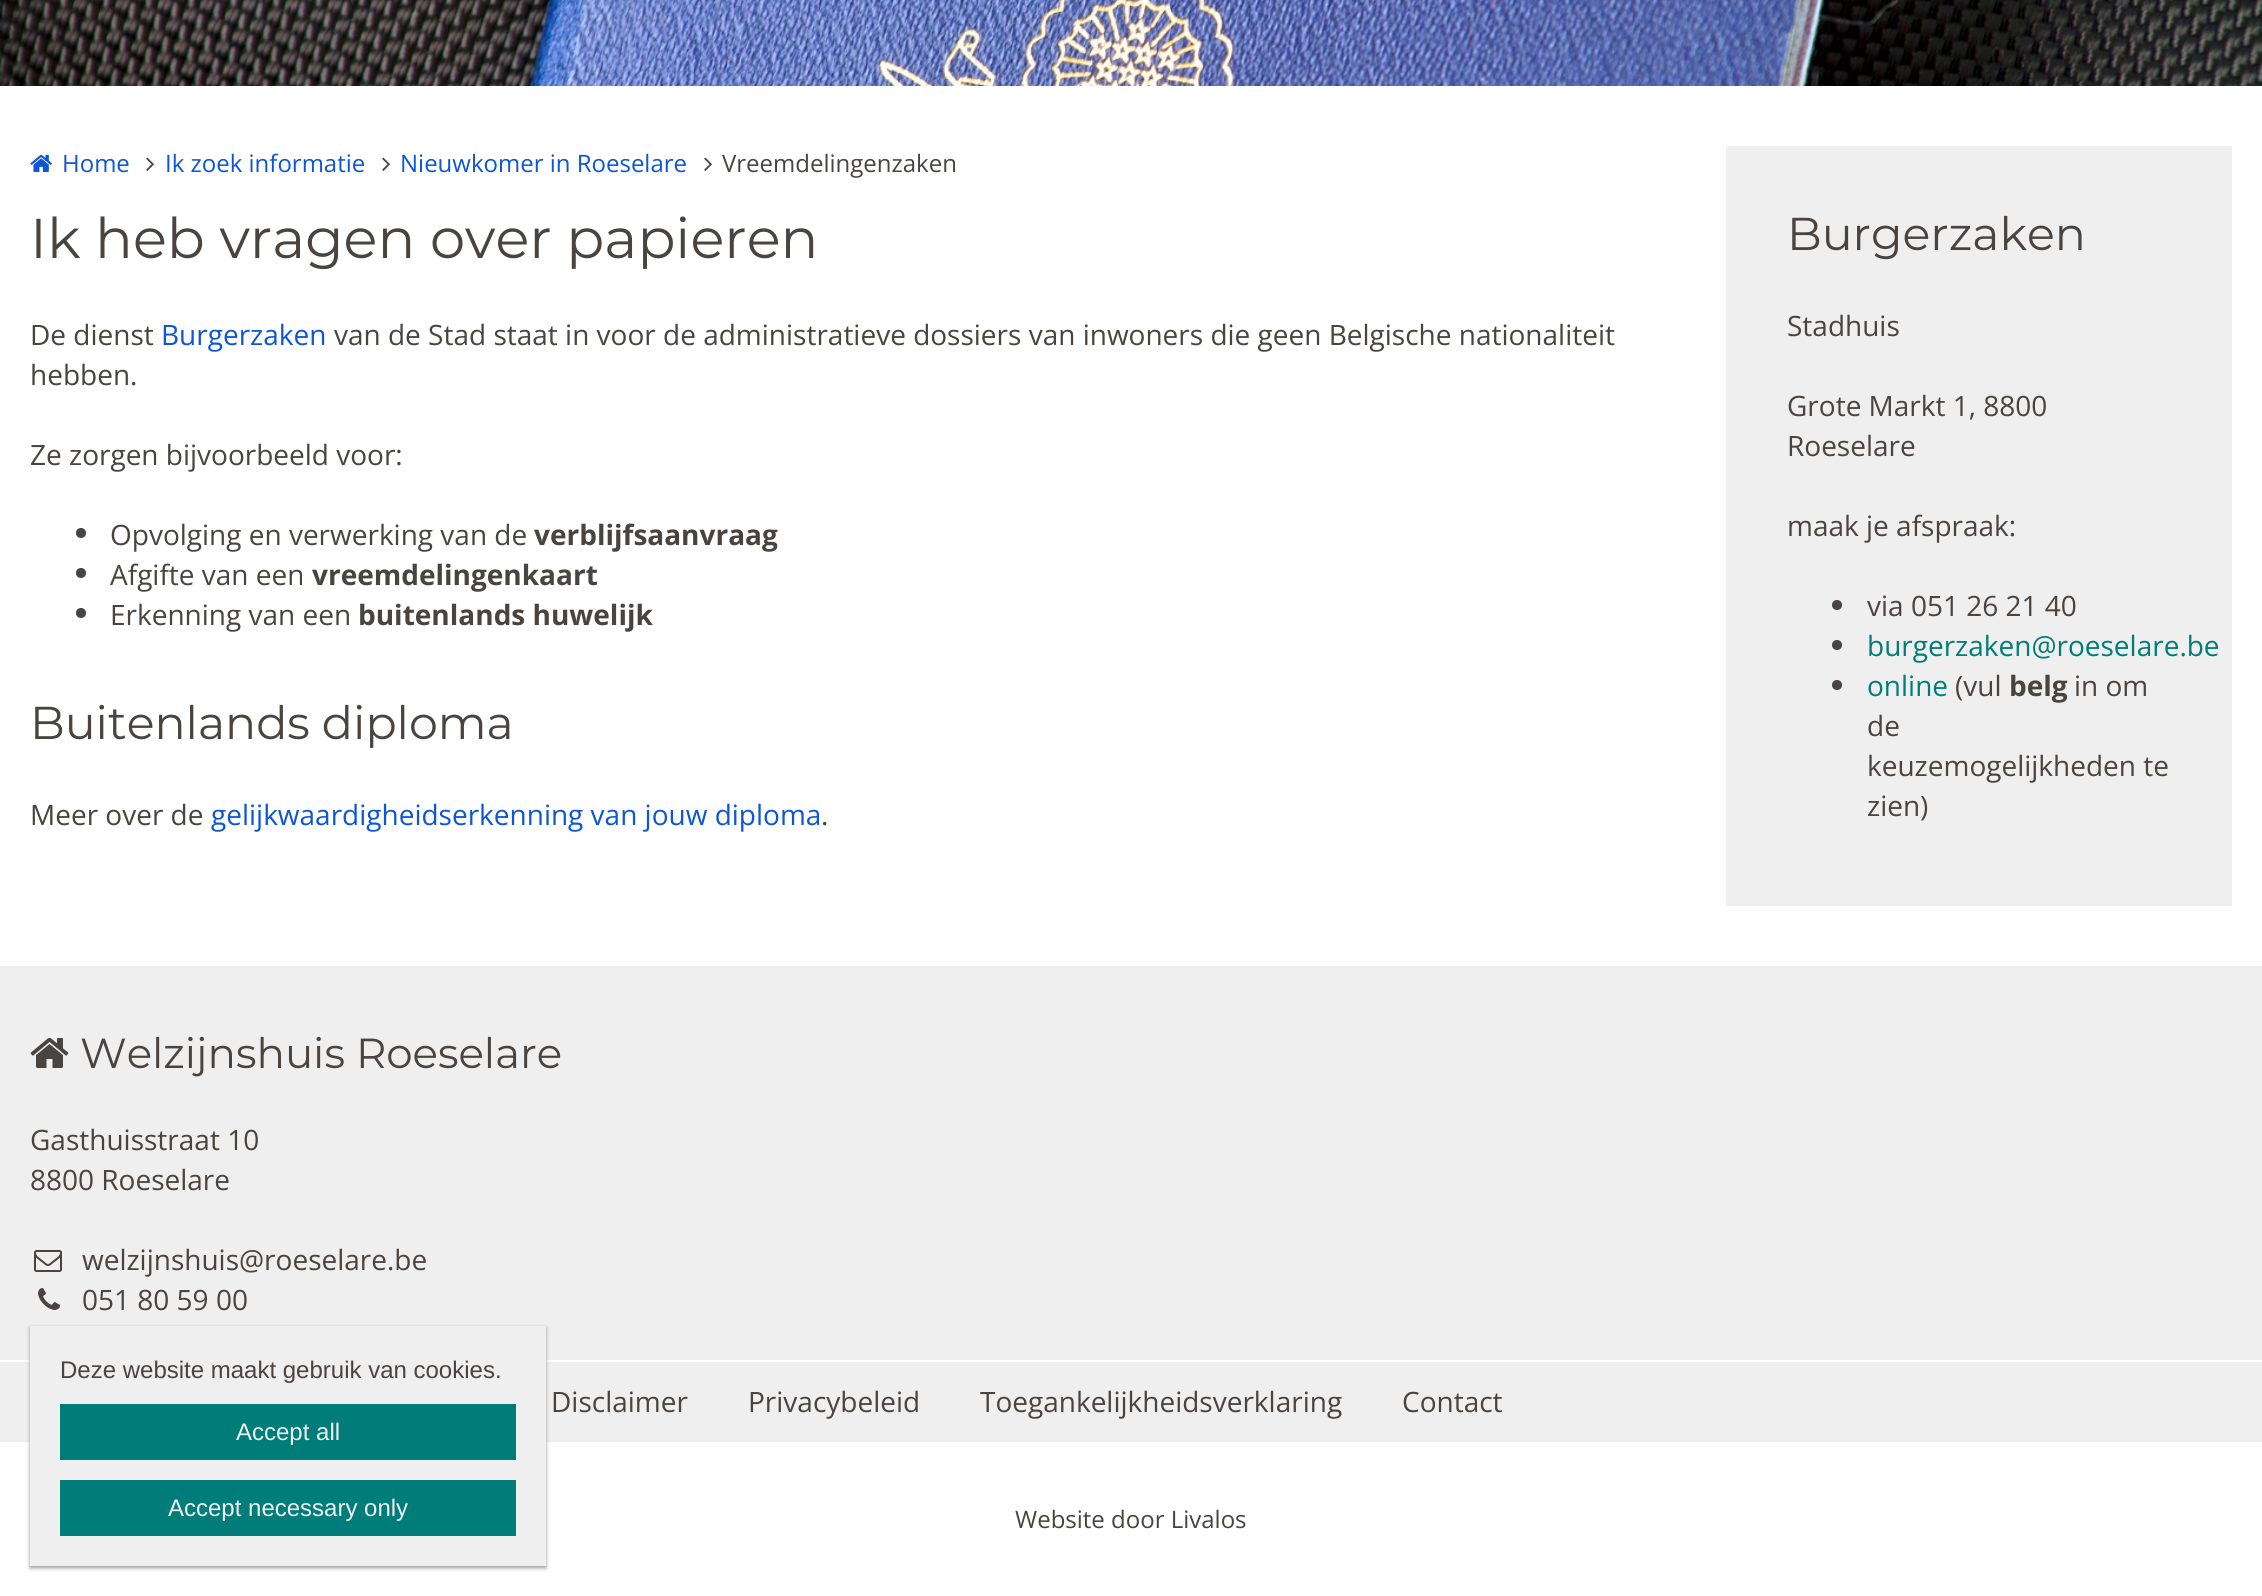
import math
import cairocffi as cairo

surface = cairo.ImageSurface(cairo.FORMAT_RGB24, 2262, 1596)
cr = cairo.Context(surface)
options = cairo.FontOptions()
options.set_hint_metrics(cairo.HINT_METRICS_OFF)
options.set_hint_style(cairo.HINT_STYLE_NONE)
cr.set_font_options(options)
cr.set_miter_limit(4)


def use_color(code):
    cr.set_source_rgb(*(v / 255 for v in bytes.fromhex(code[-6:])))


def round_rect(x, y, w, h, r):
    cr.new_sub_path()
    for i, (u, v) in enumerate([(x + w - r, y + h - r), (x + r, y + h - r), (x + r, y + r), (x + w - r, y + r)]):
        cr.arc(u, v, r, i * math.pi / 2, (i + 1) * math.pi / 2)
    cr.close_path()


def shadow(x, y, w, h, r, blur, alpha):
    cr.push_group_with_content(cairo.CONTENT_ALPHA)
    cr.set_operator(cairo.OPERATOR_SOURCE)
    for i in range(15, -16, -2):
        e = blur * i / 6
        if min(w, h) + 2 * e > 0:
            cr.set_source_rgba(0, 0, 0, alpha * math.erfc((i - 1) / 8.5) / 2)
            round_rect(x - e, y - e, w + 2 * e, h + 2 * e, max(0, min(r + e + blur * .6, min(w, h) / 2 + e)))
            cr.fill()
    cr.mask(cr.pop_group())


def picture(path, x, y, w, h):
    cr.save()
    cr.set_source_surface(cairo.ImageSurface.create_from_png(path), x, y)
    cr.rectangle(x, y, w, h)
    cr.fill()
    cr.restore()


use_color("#ffffff")
cr.paint()
picture("img1.png", 0, 0, 2262, 86)
picture("img2.png", 30, 154, 22, 18)
cr.select_font_face("Open Sans")
cr.set_font_size(24)
use_color("#0e56d5")
cr.move_to(62, 172)
cr.show_text("Home")
picture("img3.png", 146, 157, 8, 14)
cr.move_to(165, 172)
cr.show_text("Ik zoek informatie")
picture("img3.png", 382, 157, 8, 14)
cr.move_to(400, 172)
cr.show_text("Nieuwkomer in Roeselare")
picture("img3.png", 704, 157, 8, 14)
use_color("#494440")
cr.move_to(722, 172)
cr.show_text("Vreemdelingenzaken")
cr.select_font_face("Montserrat Thin")
cr.set_font_size(56)
cr.move_to(30, 258)
cr.show_text("Ik heb vragen over papieren")
cr.select_font_face("Open Sans")
cr.set_font_size(28)
cr.move_to(30, 345)
cr.show_text("De dienst")
use_color("#0e56d5")
cr.move_to(161, 345)
cr.show_text("Burgerzaken")
use_color("#494440")
cr.move_to(334, 345)
cr.show_text("van de Stad staat in voor de administratieve dossiers van inwoners die geen Belgische nationaliteit")
cr.move_to(30, 385)
cr.show_text("hebben.")
cr.move_to(30, 465)
cr.show_text("Ze zorgen bijvoorbeeld voor:")
cr.new_path()
cr.arc(81, 533, 5, 0, 2 * math.pi)
cr.fill()
cr.move_to(110, 545)
cr.show_text("Opvolging en verwerking van de")
cr.select_font_face("Open Sans", cairo.FONT_SLANT_NORMAL, cairo.FONT_WEIGHT_BOLD)
cr.move_to(534, 545)
cr.show_text("verblijfsaanvraag")
cr.new_path()
cr.arc(81, 573, 5, 0, 2 * math.pi)
cr.fill()
cr.select_font_face("Open Sans")
cr.move_to(110, 585)
cr.show_text("Afgifte van een")
cr.select_font_face("Open Sans", cairo.FONT_SLANT_NORMAL, cairo.FONT_WEIGHT_BOLD)
cr.move_to(312, 585)
cr.show_text("vreemdelingenkaart")
cr.new_path()
cr.arc(81, 613, 5, 0, 2 * math.pi)
cr.fill()
cr.select_font_face("Open Sans")
cr.move_to(110, 625)
cr.show_text("Erkenning van een")
cr.select_font_face("Open Sans", cairo.FONT_SLANT_NORMAL, cairo.FONT_WEIGHT_BOLD)
cr.move_to(358, 625)
cr.show_text("buitenlands huwelijk")
cr.select_font_face("Montserrat Thin")
cr.set_font_size(46)
cr.move_to(30, 739)
cr.show_text("Buitenlands diploma")
cr.select_font_face("Open Sans")
cr.set_font_size(28)
cr.move_to(30, 825)
cr.show_text("Meer over de")
use_color("#0e56d5")
cr.move_to(211, 825)
cr.show_text("gelijkwaardigheidserkenning van jouw diploma")
use_color("#494440")
cr.move_to(821, 825)
cr.show_text(".")
use_color("#efefef")
cr.rectangle(1726, 146, 506, 760)
cr.fill()
cr.select_font_face("Montserrat Thin")
cr.set_font_size(46)
use_color("#494440")
cr.move_to(1787, 250)
cr.show_text("Burgerzaken")
cr.select_font_face("Open Sans")
cr.set_font_size(28)
cr.move_to(1787, 336)
cr.show_text("Stadhuis")
cr.move_to(1787, 416)
cr.show_text("Grote Markt 1, 8800")
cr.move_to(1787, 456)
cr.show_text("Roeselare")
cr.move_to(1787, 536)
cr.show_text("maak je afspraak:")
cr.new_path()
cr.arc(1837, 605, 5, 0, 2 * math.pi)
cr.fill()
cr.move_to(1867, 616)
cr.show_text("via 051 26 21 40")
cr.new_path()
cr.arc(1837, 645, 5, 0, 2 * math.pi)
cr.fill()
use_color("#007d78")
cr.move_to(1867, 656)
cr.show_text("burgerzaken@roeselare.be")
use_color("#494440")
cr.new_path()
cr.arc(1837, 685, 5, 0, 2 * math.pi)
cr.fill()
use_color("#007d78")
cr.move_to(1867, 696)
cr.show_text("online")
use_color("#494440")
cr.move_to(1955, 696)
cr.show_text("(vul")
cr.select_font_face("Open Sans", cairo.FONT_SLANT_NORMAL, cairo.FONT_WEIGHT_BOLD)
cr.move_to(2009, 696)
cr.show_text("belg")
cr.select_font_face("Open Sans")
cr.move_to(2074, 696)
cr.show_text("in om")
cr.move_to(1867, 736)
cr.show_text("de")
cr.move_to(1867, 776)
cr.show_text("keuzemogelijkheden te")
cr.move_to(1867, 816)
cr.show_text("zien)")
use_color("#efefef")
cr.rectangle(0, 966, 2262, 394)
cr.fill()
picture("img4.png", 30, 1037, 39, 31)
cr.select_font_face("Montserrat Thin")
cr.set_font_size(42)
use_color("#494440")
cr.move_to(80, 1068)
cr.show_text("Welzijnshuis Roeselare")
cr.select_font_face("Open Sans")
cr.set_font_size(28)
cr.move_to(30, 1150)
cr.show_text("Gasthuisstraat 10")
cr.move_to(30, 1190)
cr.show_text("8800 Roeselare")
picture("img5.png", 34, 1250, 28, 22)
cr.move_to(82, 1270)
cr.show_text("welzijnshuis@roeselare.be")
picture("img6.png", 38, 1288, 22, 22)
cr.move_to(82, 1310)
cr.show_text("051 80 59 00")
use_color("#efefef")
cr.rectangle(0, 1362, 2262, 80)
cr.fill()
use_color("#494440")
cr.move_to(551, 1412)
cr.show_text("Disclaimer")
cr.move_to(748, 1412)
cr.show_text("Privacybeleid")
cr.move_to(980, 1412)
cr.show_text("Toegankelijkheidsverklaring")
cr.move_to(1402, 1412)
cr.show_text("Contact")
cr.set_font_size(24)
cr.move_to(1015, 1528)
cr.show_text("Website door Livalos")
use_color("#999999")
shadow(30, 1328, 516, 240, 0, 2, 1)
use_color("#efefef")
cr.rectangle(30, 1326, 516, 240)
cr.fill()
cr.select_font_face("Liberation Sans")
use_color("#494440")
cr.move_to(60, 1378)
cr.show_text("Deze website maakt gebruik van cookies.")
use_color("#007d78")
cr.rectangle(60, 1404, 456, 56)
cr.fill()
use_color("#efefef")
cr.move_to(236, 1440)
cr.show_text("Accept all")
use_color("#007d78")
cr.rectangle(60, 1480, 456, 56)
cr.fill()
use_color("#efefef")
cr.move_to(168, 1516)
cr.show_text("Accept necessary only")
surface.write_to_png("result.png")
